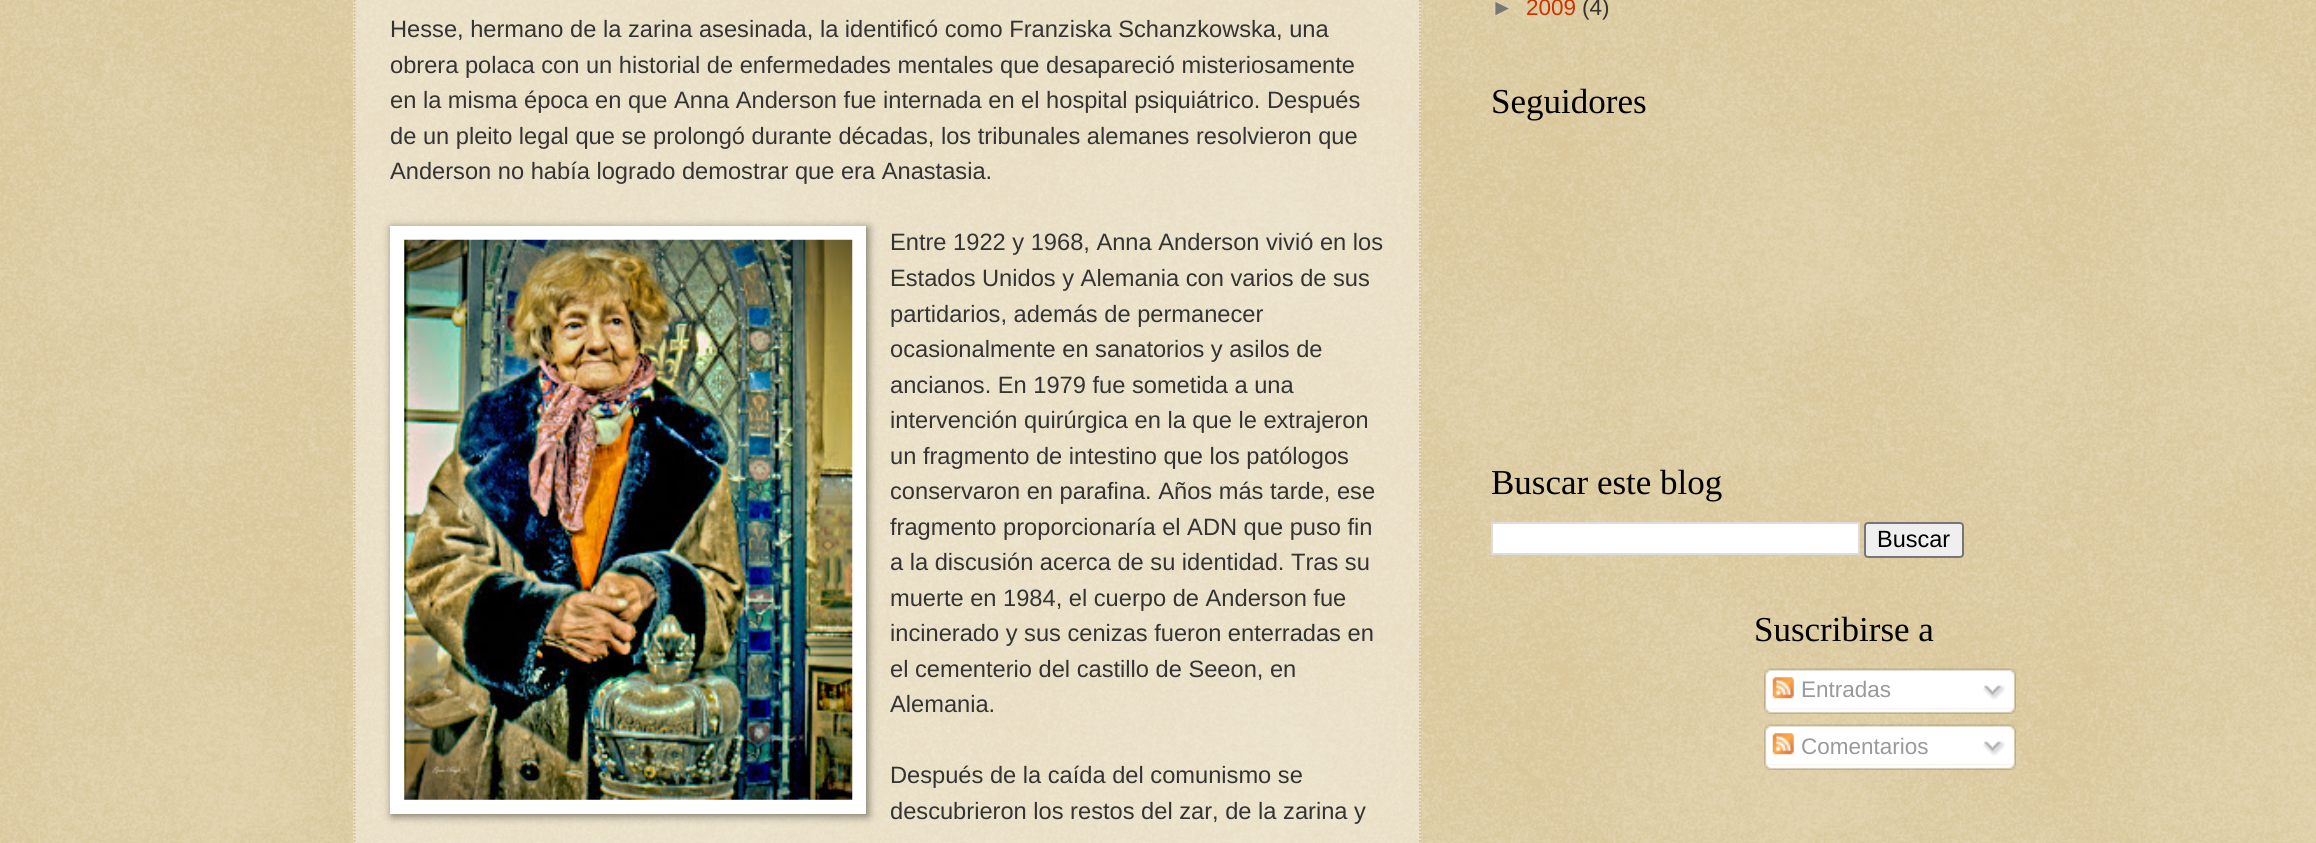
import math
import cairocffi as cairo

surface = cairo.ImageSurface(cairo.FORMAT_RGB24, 2316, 843)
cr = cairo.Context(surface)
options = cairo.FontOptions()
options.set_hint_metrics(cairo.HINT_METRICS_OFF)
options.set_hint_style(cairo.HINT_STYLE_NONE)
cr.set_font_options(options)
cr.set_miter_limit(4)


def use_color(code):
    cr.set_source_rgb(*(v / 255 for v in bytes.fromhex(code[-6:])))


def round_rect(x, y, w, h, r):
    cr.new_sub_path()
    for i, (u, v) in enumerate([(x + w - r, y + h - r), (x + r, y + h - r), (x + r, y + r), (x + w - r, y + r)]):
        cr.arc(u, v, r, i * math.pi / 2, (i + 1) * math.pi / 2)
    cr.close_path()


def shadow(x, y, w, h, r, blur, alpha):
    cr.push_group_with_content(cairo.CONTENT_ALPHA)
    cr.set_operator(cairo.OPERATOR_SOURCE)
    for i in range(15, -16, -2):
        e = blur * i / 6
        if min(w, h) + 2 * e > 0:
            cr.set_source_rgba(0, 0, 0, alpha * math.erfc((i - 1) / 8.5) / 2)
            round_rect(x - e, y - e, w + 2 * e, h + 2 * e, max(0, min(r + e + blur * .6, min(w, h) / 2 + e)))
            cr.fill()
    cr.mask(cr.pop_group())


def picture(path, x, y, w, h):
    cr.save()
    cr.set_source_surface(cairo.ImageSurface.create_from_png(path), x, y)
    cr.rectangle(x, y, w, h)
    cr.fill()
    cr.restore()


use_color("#c0a154")
cr.paint()
picture("img1.png", 0, 0, 2316, 843)
cr.set_source_rgba(1, 1, 1, 0.4)
cr.rectangle(353, 0, 1068, 843)
cr.fill()
cr.new_path()
cr.move_to(1420, -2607.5)
cr.line_to(1420, 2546)
use_color("#ccbb99")
cr.set_line_width(1.8)
cr.set_dash([1.75, 1.75])
cr.stroke()
cr.new_path()
cr.move_to(354.5, -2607.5)
cr.line_to(354.5, 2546)
cr.stroke()
cr.select_font_face("Liberation Sans")
cr.set_font_size(23.65)
use_color("#333333")
cr.move_to(390, 37)
cr.show_text("Hesse, hermano de la zarina asesinada, la identificó como Franziska Schanzkowska, una")
cr.move_to(390, 73)
cr.show_text("obrera polaca con un historial de enfermedades mentales que desapareció misteriosamente")
cr.move_to(390, 108)
cr.show_text("en la misma época en que Anna Anderson fue internada en el hospital psiquiátrico. Después")
cr.move_to(390, 144)
cr.show_text("de un pleito legal que se prolongó durante décadas, los tribunales alemanes resolvieron que")
cr.move_to(390, 179)
cr.show_text("Anderson no había logrado demostrar que era Anastasia.")
use_color("#000000")
shadow(392, 228, 476, 588, 0, 4.5, 0.5)
use_color("#ffffff")
cr.rectangle(390, 226, 476, 588)
cr.fill()
picture("img2.png", 404, 239, 449, 561)
use_color("#333333")
cr.move_to(890, 250)
cr.show_text("Entre 1922 y 1968, Anna Anderson vivió en los")
cr.move_to(890, 286)
cr.show_text("Estados Unidos y Alemania con varios de sus")
cr.move_to(890, 322)
cr.show_text("partidarios, además de permanecer")
cr.move_to(890, 357)
cr.show_text("ocasionalmente en sanatorios y asilos de")
cr.move_to(890, 393)
cr.show_text("ancianos. En 1979 fue sometida a una")
cr.move_to(890, 428)
cr.show_text("intervención quirúrgica en la que le extrajeron")
cr.move_to(890, 464)
cr.show_text("un fragmento de intestino que los patólogos")
cr.move_to(890, 499)
cr.show_text("conservaron en parafina. Años más tarde, ese")
cr.move_to(890, 535)
cr.show_text("fragmento proporcionaría el ADN que puso fin")
cr.move_to(890, 570)
cr.show_text("a la discusión acerca de su identidad. Tras su")
cr.move_to(890, 606)
cr.show_text("muerte en 1984, el cuerpo de Anderson fue")
cr.move_to(890, 641)
cr.show_text("incinerado y sus cenizas fueron enterradas en")
cr.move_to(890, 677)
cr.show_text("el cementerio del castillo de Seeon, en")
cr.move_to(890, 712)
cr.show_text("Alemania.")
cr.move_to(890, 783)
cr.show_text("Después de la caída del comunismo se")
cr.move_to(890, 819)
cr.show_text("descubrieron los restos del zar, de la zarina y")
cr.set_font_size(22.5)
use_color("#777777")
cr.move_to(1491, 15)
cr.show_text("►")
use_color("#cc3300")
cr.move_to(1526, 15)
cr.show_text("2009")
use_color("#333333")
cr.move_to(1582, 15)
cr.show_text("(4)")
cr.select_font_face("Liberation Serif")
cr.set_font_size(35)
use_color("#000000")
cr.move_to(1491, 113)
cr.show_text("Seguidores")
cr.move_to(1491, 494)
cr.show_text("Buscar este blog")
use_color("#ffffff")
cr.rectangle(1492, 523, 367, 31)
cr.fill_preserve()
use_color("#dddddd")
cr.set_line_width(2)
cr.set_dash([])
cr.stroke()
use_color("#efefef")
round_rect(1865, 523, 98, 34, 3)
cr.fill_preserve()
use_color("#767676")
cr.stroke()
cr.select_font_face("Liberation Sans")
cr.set_font_size(23.5)
use_color("#000000")
cr.move_to(1877, 547)
cr.show_text("Buscar")
cr.select_font_face("Liberation Serif")
cr.set_font_size(35)
cr.move_to(1754, 641)
cr.show_text("Suscribirse a")
picture("img3.png", 1764, 668, 252, 41)
picture("img4.png", 1772, 677, 22, 22)
cr.select_font_face("Liberation Sans")
cr.set_font_size(22.5)
use_color("#999999")
cr.move_to(1801, 697)
cr.show_text("Entradas")
picture("img5.png", 1983, 684, 23, 16)
picture("img6.png", 1764, 708, 252, 6)
picture("img7.png", 1764, 724, 252, 41)
picture("img4.png", 1772, 733, 22, 22)
cr.move_to(1801, 754)
cr.show_text("Comentarios")
picture("img5.png", 1983, 740, 23, 16)
picture("img8.png", 1764, 764, 252, 6)
surface.write_to_png("result.png")
